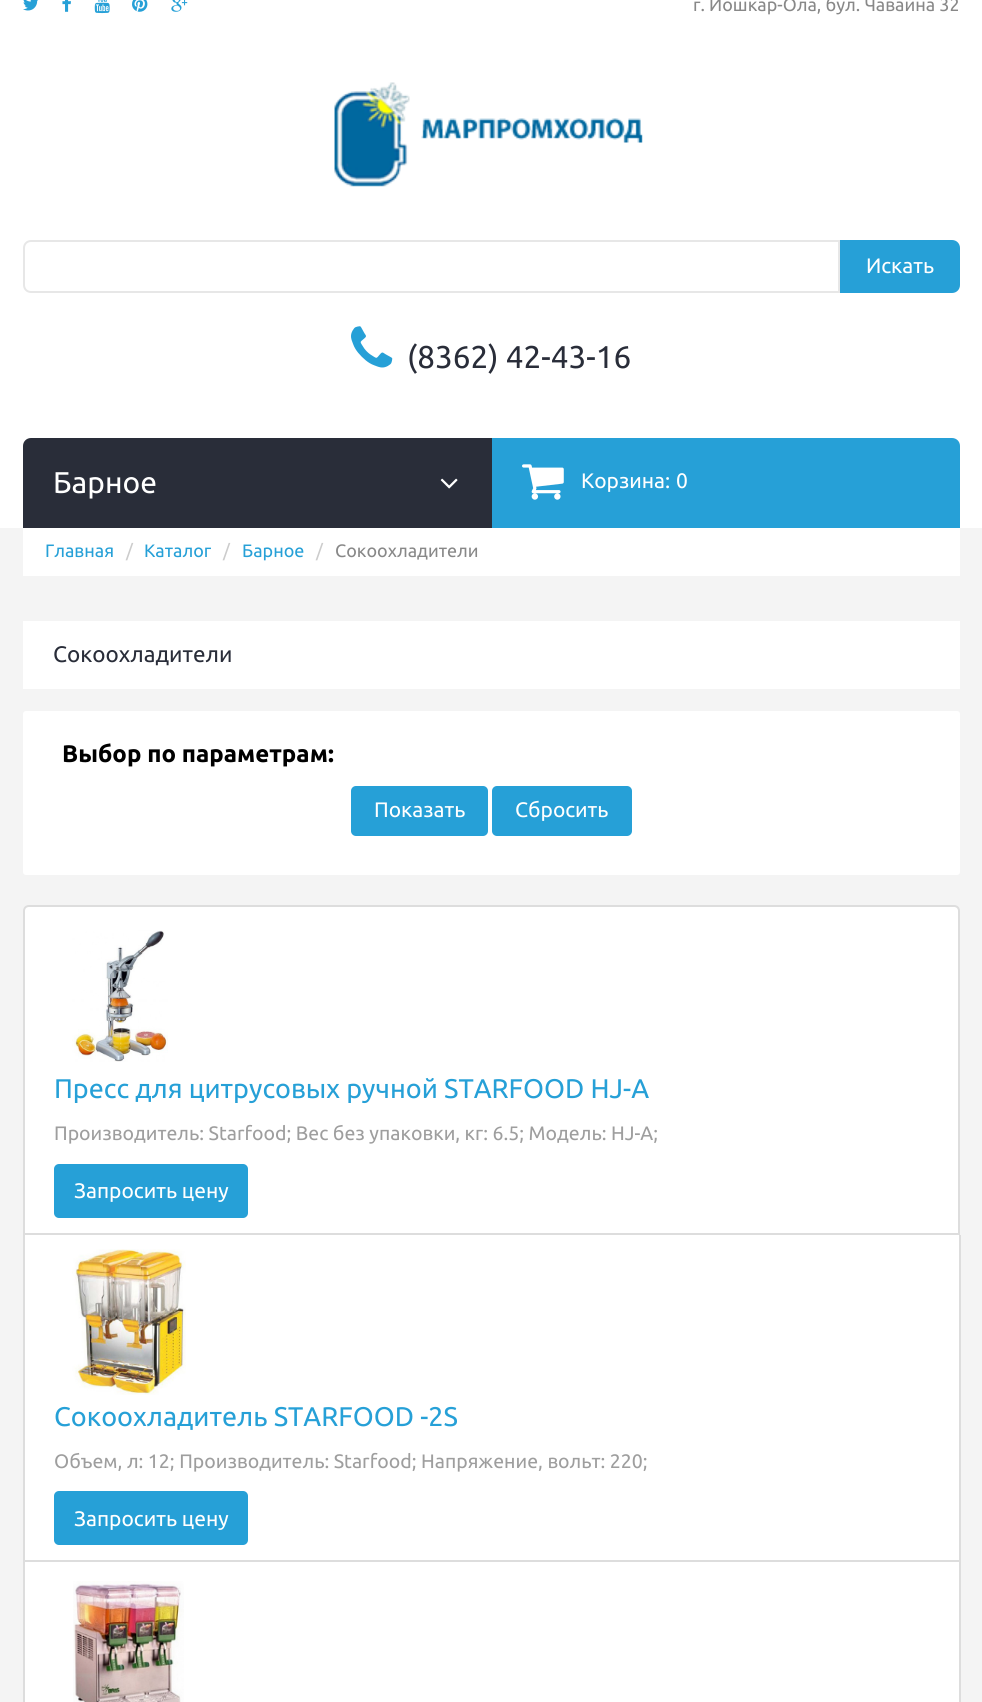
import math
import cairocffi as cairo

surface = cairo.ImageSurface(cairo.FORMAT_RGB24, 982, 1702)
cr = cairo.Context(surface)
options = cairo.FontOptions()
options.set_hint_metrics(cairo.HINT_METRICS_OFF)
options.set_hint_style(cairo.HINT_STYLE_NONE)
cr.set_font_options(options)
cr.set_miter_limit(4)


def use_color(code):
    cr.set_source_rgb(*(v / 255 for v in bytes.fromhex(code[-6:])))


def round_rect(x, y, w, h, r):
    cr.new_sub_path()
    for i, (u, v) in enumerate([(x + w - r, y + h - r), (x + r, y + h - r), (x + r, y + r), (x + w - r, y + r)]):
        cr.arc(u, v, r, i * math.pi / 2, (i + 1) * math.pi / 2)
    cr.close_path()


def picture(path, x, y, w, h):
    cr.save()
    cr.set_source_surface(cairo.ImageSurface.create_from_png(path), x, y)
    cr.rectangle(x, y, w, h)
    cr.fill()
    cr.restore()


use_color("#f4f4f4")
cr.paint()
use_color("#ffffff")
cr.rectangle(0, 0, 982, 528)
cr.fill()
picture("img1.png", 23, 0, 15, 11)
picture("img2.png", 62, 0, 9, 12)
picture("img3.png", 94, 0, 16, 14)
picture("img4.png", 132, 0, 16, 12)
picture("img5.png", 171, 0, 17, 12)
cr.select_font_face("Ubuntu")
cr.set_font_size(18)
use_color("#888888")
cr.move_to(693, 11)
cr.show_text("г. Йошкар-Ола, бул. Чавайна 32")
picture("img6.png", 334, 82, 309, 105)
cr.new_path()
cr.move_to(31, 241)
cr.line_to(839, 241)
cr.line_to(839, 292)
cr.line_to(31, 292)
cr.curve_to(27, 292, 24, 289, 24, 285)
cr.line_to(24, 248)
cr.curve_to(24, 244, 27, 241, 31, 241)
cr.close_path()
use_color("#e7e7e7")
cr.stroke()
use_color("#26a0d7")
cr.new_path()
cr.move_to(840, 240)
cr.line_to(952, 240)
cr.curve_to(956.5, 240, 960, 243.5, 960, 248)
cr.line_to(960, 285)
cr.curve_to(960, 289.5, 956.5, 293, 952, 293)
cr.line_to(840, 293)
cr.close_path()
cr.fill()
cr.set_font_size(21)
use_color("#ffffff")
cr.move_to(866, 273)
cr.show_text("Искать")
picture("img7.png", 351, 326, 42, 42)
cr.set_font_size(31.5)
use_color("#292d39")
cr.move_to(407, 368)
cr.show_text("(8362) 42-43-16")
cr.new_path()
cr.move_to(31, 438)
cr.line_to(945, 438)
cr.curve_to(953.5, 438, 960, 444.5, 960, 453)
cr.line_to(960, 528)
cr.line_to(23, 528)
cr.line_to(23, 446)
cr.curve_to(23, 441.5, 26.5, 438, 31, 438)
cr.close_path()
cr.fill()
cr.set_font_size(30)
use_color("#ffffff")
cr.move_to(53, 493)
cr.show_text("Барное")
picture("img8.png", 440, 478, 18, 11)
use_color("#26a0d7")
cr.new_path()
cr.move_to(492, 438)
cr.line_to(952, 438)
cr.curve_to(956.5, 438, 960, 441.5, 960, 446)
cr.line_to(960, 528)
cr.line_to(492, 528)
cr.close_path()
cr.fill()
picture("img9.png", 522, 464, 42, 36)
cr.set_font_size(21)
use_color("#ffffff")
cr.move_to(581, 488)
cr.show_text("Корзина:")
cr.move_to(676, 488)
cr.show_text("0")
cr.rectangle(23, 528, 937, 48)
cr.fill()
cr.set_font_size(18)
use_color("#26a0d7")
cr.move_to(45, 557)
cr.show_text("Главная")
use_color("#cccccc")
cr.move_to(126, 557)
cr.show_text("/")
use_color("#26a0d7")
cr.move_to(144, 557)
cr.show_text("Каталог")
use_color("#cccccc")
cr.move_to(223, 557)
cr.show_text("/")
use_color("#26a0d7")
cr.move_to(242, 557)
cr.show_text("Барное")
use_color("#cccccc")
cr.move_to(316, 557)
cr.show_text("/")
use_color("#888888")
cr.move_to(335, 557)
cr.show_text("Сокоохладители")
use_color("#ffffff")
cr.rectangle(23, 621, 937, 68)
cr.fill()
cr.set_font_size(22.5)
use_color("#292d39")
cr.move_to(53, 662)
cr.show_text("Сокоохладители")
use_color("#ffffff")
round_rect(23, 711, 937, 164, 3)
cr.fill()
cr.select_font_face("Ubuntu", cairo.FONT_SLANT_NORMAL, cairo.FONT_WEIGHT_BOLD)
cr.set_font_size(24)
use_color("#000000")
cr.move_to(62, 762)
cr.show_text("Выбор по параметрам:")
use_color("#26a0d7")
round_rect(351, 786, 137, 50, 5)
cr.fill()
cr.select_font_face("Ubuntu")
cr.set_font_size(21)
use_color("#ffffff")
cr.move_to(374, 817)
cr.show_text("Показать")
use_color("#26a0d7")
round_rect(492, 786, 140, 50, 5)
cr.fill()
use_color("#ffffff")
cr.move_to(515, 817)
cr.show_text("Сбросить")
cr.new_path()
cr.move_to(29, 906)
cr.line_to(954, 906)
cr.curve_to(957, 906, 959, 908, 959, 911)
cr.line_to(959, 1234)
cr.line_to(24, 1234)
cr.line_to(24, 911)
cr.curve_to(24, 908, 26, 906, 29, 906)
cr.close_path()
cr.fill_preserve()
use_color("#dddddd")
cr.stroke()
picture("img10.png", 72, 930, 96, 132)
cr.set_font_size(27)
use_color("#26a0d7")
cr.move_to(54, 1098)
cr.show_text("Пресс для цитрусовых ручной STARFOOD HJ-A")
cr.set_font_size(19.5)
use_color("#9e9e9e")
cr.move_to(54, 1140)
cr.show_text("Производитель: Starfood; Вес без упаковки, кг: 6.5; Модель: HJ-A;")
use_color("#26a0d7")
round_rect(54, 1164, 194, 54, 5)
cr.fill()
cr.set_font_size(21)
use_color("#ffffff")
cr.move_to(74, 1198)
cr.show_text("Запросить цену")
cr.rectangle(25, 1235, 934, 325)
cr.fill()
use_color("#dddddd")
cr.rectangle(959, 1235, 2, 467)
cr.fill()
cr.rectangle(23, 1560, 937, 2)
cr.fill()
cr.rectangle(23, 1235, 2, 467)
cr.fill()
picture("img11.png", 72, 1249, 114, 146)
cr.set_font_size(27)
use_color("#26a0d7")
cr.move_to(54, 1426)
cr.show_text("Сокоохладитель STARFOOD -2S")
cr.set_font_size(19.5)
use_color("#9e9e9e")
cr.move_to(54, 1468)
cr.show_text("Объем, л: 12; Производитель: Starfood; Напряжение, вольт: 220;")
use_color("#26a0d7")
round_rect(54, 1491, 194, 54, 5)
cr.fill()
cr.set_font_size(21)
use_color("#ffffff")
cr.move_to(74, 1526)
cr.show_text("Запросить цену")
cr.rectangle(25, 1562, 934, 140)
cr.fill()
picture("img12.png", 73, 1581, 111, 121)
surface.write_to_png("result.png")
